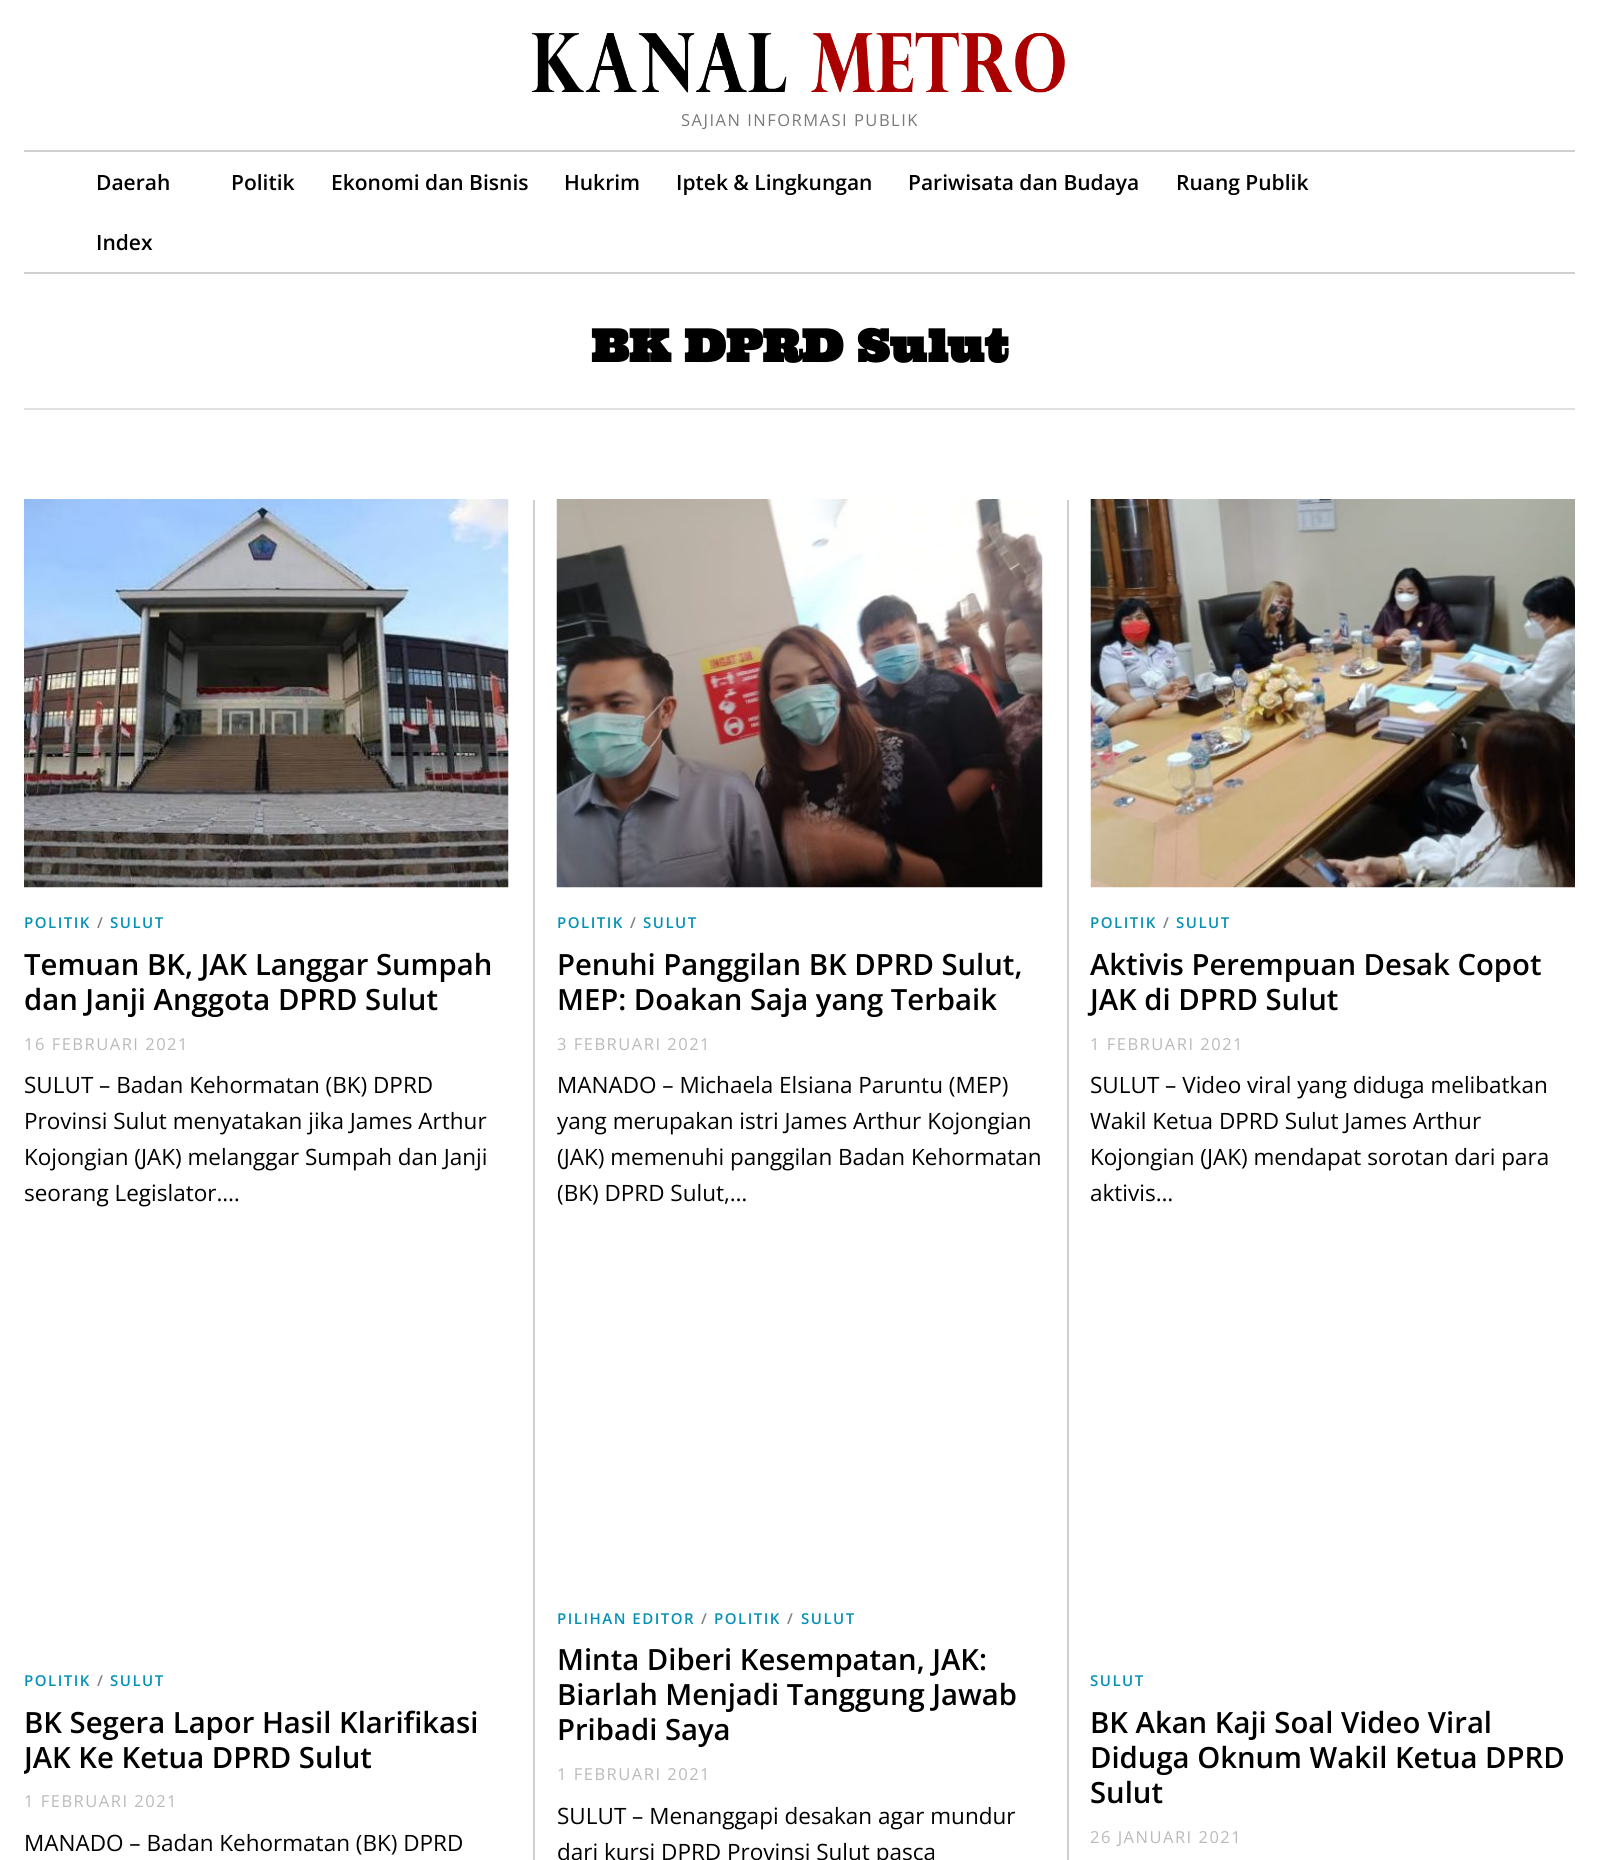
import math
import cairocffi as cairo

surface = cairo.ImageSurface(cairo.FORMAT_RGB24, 1599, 1860)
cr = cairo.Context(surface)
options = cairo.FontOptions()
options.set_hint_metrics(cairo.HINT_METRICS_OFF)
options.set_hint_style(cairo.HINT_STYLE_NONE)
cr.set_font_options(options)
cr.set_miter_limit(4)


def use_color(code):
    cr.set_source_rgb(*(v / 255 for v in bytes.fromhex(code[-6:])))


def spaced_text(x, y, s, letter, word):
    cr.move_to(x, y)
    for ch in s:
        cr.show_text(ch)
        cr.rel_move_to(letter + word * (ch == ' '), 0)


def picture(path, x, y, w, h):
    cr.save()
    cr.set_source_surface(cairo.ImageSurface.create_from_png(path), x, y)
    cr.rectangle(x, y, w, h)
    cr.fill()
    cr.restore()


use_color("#ffffff")
cr.paint()
picture("img1.png", 531, 32, 534, 61)
cr.select_font_face("Open Sans")
cr.set_font_size(16.5)
use_color("#797979")
spaced_text(681, 126, "SAJIAN INFORMASI PUBLIK", 1.5, 0)
use_color("#d0d0d0")
cr.rectangle(24, 150, 1551, 2)
cr.fill()
cr.rectangle(24, 272, 1551, 2)
cr.fill()
cr.select_font_face("Open Sans SemiBold")
cr.set_font_size(21)
use_color("#000000")
cr.move_to(96, 190)
cr.show_text("Daerah")
cr.move_to(231, 190)
cr.show_text("Politik")
cr.move_to(331, 190)
cr.show_text("Ekonomi dan Bisnis")
cr.move_to(564, 190)
cr.show_text("Hukrim")
cr.move_to(676, 190)
cr.show_text("Iptek & Lingkungan")
cr.move_to(908, 190)
cr.show_text("Pariwisata dan Budaya")
cr.move_to(1176, 190)
cr.show_text("Ruang Publik")
cr.move_to(96, 250)
cr.show_text("Index")
use_color("#e0e0e0")
cr.rectangle(24, 408, 1551, 2)
cr.fill()
cr.select_font_face("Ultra", cairo.FONT_SLANT_NORMAL, cairo.FONT_WEIGHT_BOLD)
cr.set_font_size(45)
use_color("#000000")
cr.move_to(591, 362)
cr.show_text("BK DPRD Sulut")
picture("img2.png", 24, 499, 485, 389)
cr.select_font_face("Open Sans SemiBold")
cr.set_font_size(15)
use_color("#0591b5")
spaced_text(24, 928, "POLITIK", 1.5, 0)
use_color("#808080")
spaced_text(97, 928, "/", 1.5, 0)
use_color("#0591b5")
spaced_text(110, 928, "SULUT", 1.5, 0)
cr.set_font_size(29.25)
use_color("#000000")
cr.move_to(24, 975)
cr.show_text("Temuan BK, JAK Langgar Sumpah")
cr.move_to(24, 1010)
cr.show_text("dan Janji Anggota DPRD Sulut")
cr.select_font_face("Open Sans")
cr.set_font_size(16.5)
use_color("#bababa")
spaced_text(24, 1050, "16 FEBRUARI 2021", 1.5, 0)
cr.set_font_size(22.5)
use_color("#000000")
cr.move_to(24, 1093)
cr.show_text("SULUT – Badan Kehormatan (BK) DPRD")
cr.move_to(24, 1129)
cr.show_text("Provinsi Sulut menyatakan jika James Arthur")
cr.move_to(24, 1165)
cr.show_text("Kojongian (JAK) melanggar Sumpah dan Janji")
cr.move_to(24, 1201)
cr.show_text("seorang Legislator.…")
use_color("#d0d0d0")
cr.rectangle(533, 500, 2, 1360)
cr.fill()
cr.rectangle(1067, 500, 2, 1360)
cr.fill()
picture("img3.png", 556, 499, 487, 389)
cr.select_font_face("Open Sans SemiBold")
cr.set_font_size(15)
use_color("#0591b5")
spaced_text(557, 928, "POLITIK", 1.5, 0)
use_color("#808080")
spaced_text(630, 928, "/", 1.5, 0)
use_color("#0591b5")
spaced_text(643, 928, "SULUT", 1.5, 0)
cr.set_font_size(29.25)
use_color("#000000")
cr.move_to(557, 975)
cr.show_text("Penuhi Panggilan BK DPRD Sulut,")
cr.move_to(557, 1010)
cr.show_text("MEP: Doakan Saja yang Terbaik")
cr.select_font_face("Open Sans")
cr.set_font_size(16.5)
use_color("#bababa")
spaced_text(557, 1050, "3 FEBRUARI 2021", 1.5, 0)
cr.set_font_size(22.5)
use_color("#000000")
cr.move_to(557, 1093)
cr.show_text("MANADO – Michaela Elsiana Paruntu (MEP)")
cr.move_to(557, 1129)
cr.show_text("yang merupakan istri James Arthur Kojongian")
cr.move_to(557, 1165)
cr.show_text("(JAK) memenuhi panggilan Badan Kehormatan")
cr.move_to(557, 1201)
cr.show_text("(BK) DPRD Sulut,…")
picture("img4.png", 1090, 499, 485, 389)
cr.select_font_face("Open Sans SemiBold")
cr.set_font_size(15)
use_color("#0591b5")
spaced_text(1090, 928, "POLITIK", 1.5, 0)
use_color("#808080")
spaced_text(1163, 928, "/", 1.5, 0)
use_color("#0591b5")
spaced_text(1176, 928, "SULUT", 1.5, 0)
cr.set_font_size(29.25)
use_color("#000000")
cr.move_to(1090, 975)
cr.show_text("Aktivis Perempuan Desak Copot")
cr.move_to(1090, 1010)
cr.show_text("JAK di DPRD Sulut")
cr.select_font_face("Open Sans")
cr.set_font_size(16.5)
use_color("#bababa")
spaced_text(1090, 1050, "1 FEBRUARI 2021", 1.5, 0)
cr.set_font_size(22.5)
use_color("#000000")
cr.move_to(1090, 1093)
cr.show_text("SULUT – Video viral yang diduga melibatkan")
cr.move_to(1090, 1129)
cr.show_text("Wakil Ketua DPRD Sulut James Arthur")
cr.move_to(1090, 1165)
cr.show_text("Kojongian (JAK) mendapat sorotan dari para")
cr.move_to(1090, 1201)
cr.show_text("aktivis…")
cr.select_font_face("Open Sans SemiBold")
cr.set_font_size(15)
use_color("#0591b5")
spaced_text(24, 1686, "POLITIK", 1.5, 0)
use_color("#808080")
spaced_text(97, 1686, "/", 1.5, 0)
use_color("#0591b5")
spaced_text(110, 1686, "SULUT", 1.5, 0)
cr.set_font_size(29.25)
use_color("#000000")
cr.move_to(24, 1733)
cr.show_text("BK Segera Lapor Hasil Klarifikasi")
cr.save()
cr.rectangle(24, 500, 1551, 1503)
cr.clip()
cr.move_to(24, 1768)
cr.show_text("JAK Ke Ketua DPRD Sulut")
cr.restore()
cr.select_font_face("Open Sans")
cr.set_font_size(16.5)
use_color("#bababa")
spaced_text(24, 1807, "1 FEBRUARI 2021", 1.5, 0)
cr.set_font_size(22.5)
use_color("#000000")
cr.move_to(24, 1851)
cr.show_text("MANADO – Badan Kehormatan (BK) DPRD")
cr.select_font_face("Open Sans SemiBold")
cr.set_font_size(15)
use_color("#0591b5")
spaced_text(557, 1624, "PILIHAN EDITOR", 1.5, 0)
use_color("#808080")
spaced_text(701, 1624, "/", 1.5, 0)
use_color("#0591b5")
spaced_text(714, 1624, "POLITIK", 1.5, 0)
use_color("#808080")
spaced_text(787, 1624, "/", 1.5, 0)
use_color("#0591b5")
spaced_text(801, 1624, "SULUT", 1.5, 0)
cr.set_font_size(29.25)
use_color("#000000")
cr.move_to(557, 1670)
cr.show_text("Minta Diberi Kesempatan, JAK:")
cr.move_to(557, 1705)
cr.show_text("Biarlah Menjadi Tanggung Jawab")
cr.move_to(557, 1740)
cr.show_text("Pribadi Saya")
cr.select_font_face("Open Sans")
cr.set_font_size(16.5)
use_color("#bababa")
spaced_text(557, 1780, "1 FEBRUARI 2021", 1.5, 0)
cr.set_font_size(22.5)
use_color("#000000")
cr.move_to(557, 1824)
cr.show_text("SULUT – Menanggapi desakan agar mundur")
cr.move_to(557, 1860)
cr.show_text("dari kursi DPRD Provinsi Sulut pasca")
cr.select_font_face("Open Sans SemiBold")
cr.set_font_size(15)
use_color("#0591b5")
spaced_text(1090, 1686, "SULUT", 1.5, 0)
cr.set_font_size(29.25)
use_color("#000000")
cr.move_to(1090, 1733)
cr.show_text("BK Akan Kaji Soal Video Viral")
cr.move_to(1090, 1768)
cr.show_text("Diduga Oknum Wakil Ketua DPRD")
cr.move_to(1090, 1803)
cr.show_text("Sulut")
cr.select_font_face("Open Sans")
cr.set_font_size(16.5)
use_color("#bababa")
spaced_text(1090, 1843, "26 JANUARI 2021", 1.5, 0)
surface.write_to_png("result.png")
